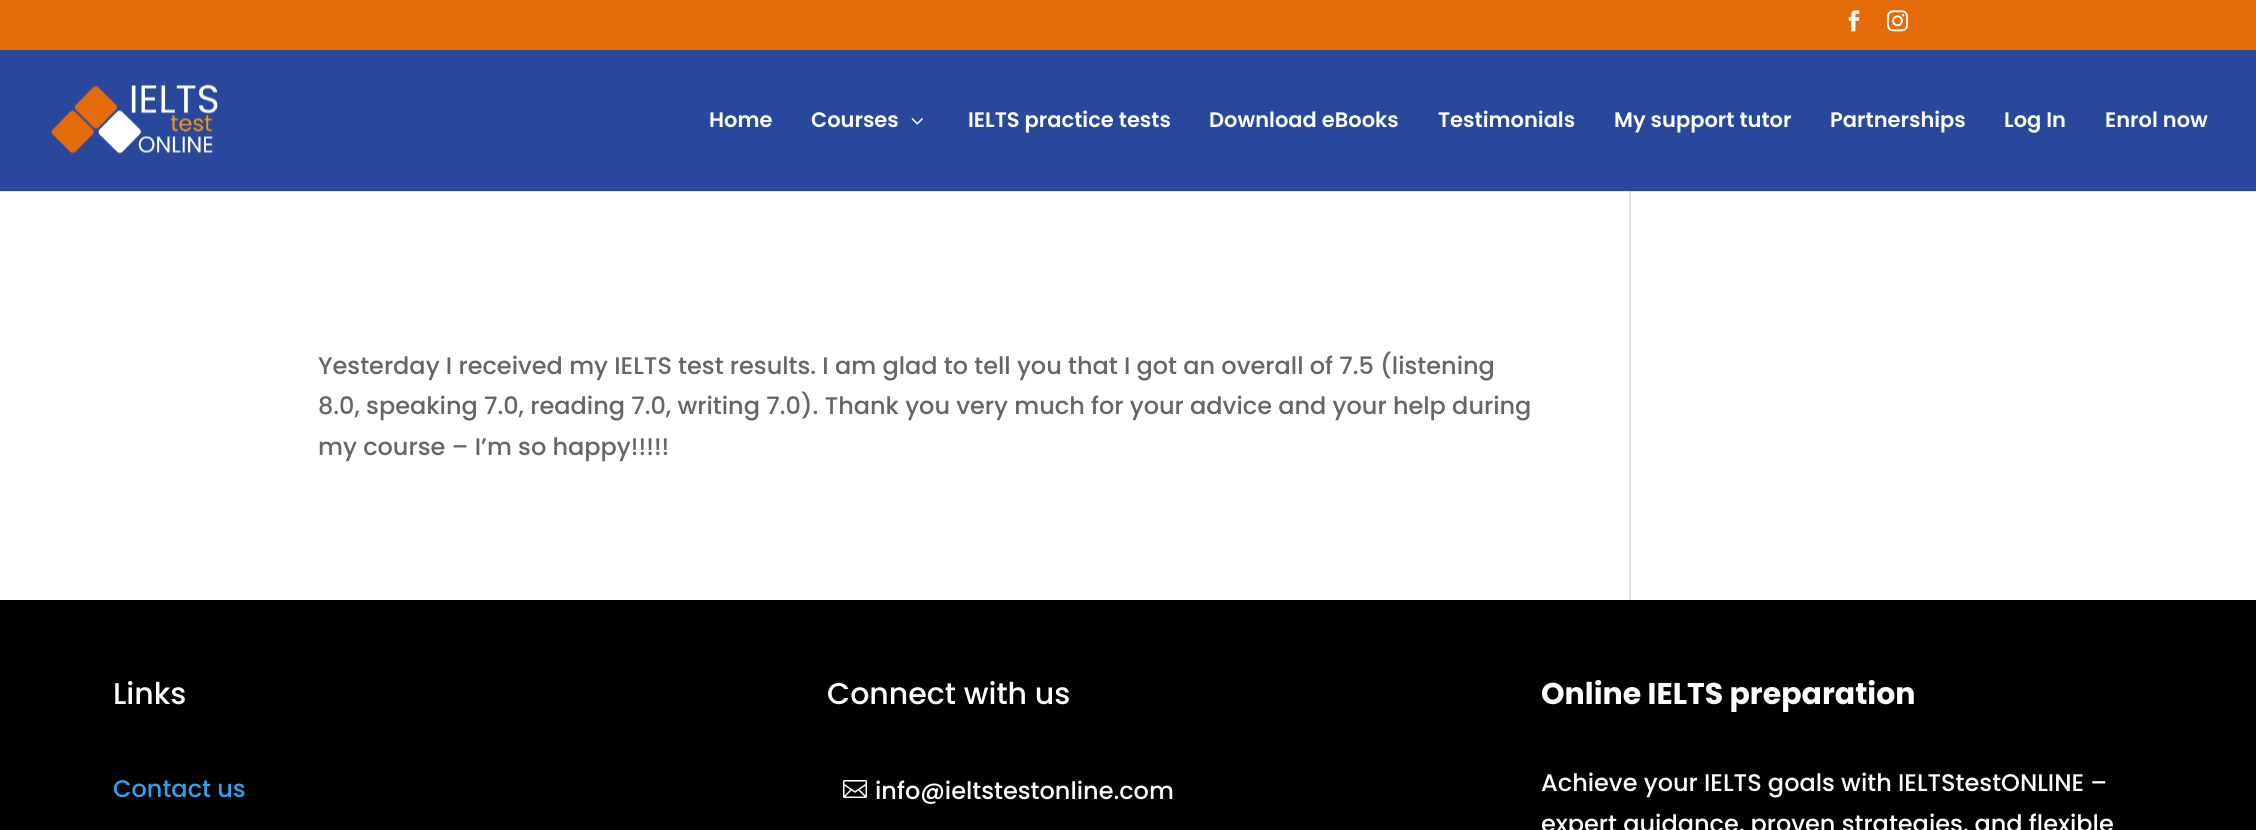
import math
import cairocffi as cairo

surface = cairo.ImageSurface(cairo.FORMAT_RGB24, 2256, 830)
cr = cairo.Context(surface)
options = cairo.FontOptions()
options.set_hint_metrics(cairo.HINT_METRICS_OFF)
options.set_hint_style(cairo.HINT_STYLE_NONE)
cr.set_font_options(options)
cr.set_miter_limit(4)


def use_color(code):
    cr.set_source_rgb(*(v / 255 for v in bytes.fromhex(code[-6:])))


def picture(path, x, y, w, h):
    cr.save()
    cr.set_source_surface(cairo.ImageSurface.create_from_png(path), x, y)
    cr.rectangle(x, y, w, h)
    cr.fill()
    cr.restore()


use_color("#ffffff")
cr.paint()
use_color("#e6e6e6")
cr.rectangle(0, 191, 2256, 1)
cr.fill()
use_color("#e46b0a")
cr.rectangle(0, 0, 2256, 50)
cr.fill()
picture("img1.png", 1848, 10, 12, 22)
picture("img2.png", 1887, 10, 21, 22)
use_color("#e2e2e2")
cr.rectangle(1629, 189, 2, 411)
cr.fill()
use_color("#29489b")
cr.rectangle(0, 50, 2256, 141)
cr.fill()
picture("img3.png", 51, 84, 167, 70)
cr.select_font_face("Poppins SemiBold")
cr.set_font_size(21)
use_color("#ffffff")
cr.move_to(709, 127)
cr.show_text("Home")
cr.move_to(811, 127)
cr.show_text("Courses")
picture("img4.png", 911, 118, 12, 7)
cr.move_to(968, 127)
cr.show_text("IELTS practice tests")
cr.move_to(1209, 127)
cr.show_text("Download eBooks")
cr.move_to(1438, 127)
cr.show_text("Testimonials")
cr.move_to(1614, 127)
cr.show_text("My support tutor")
cr.move_to(1830, 127)
cr.show_text("Partnerships")
cr.move_to(2004, 127)
cr.show_text("Log In")
cr.move_to(2105, 127)
cr.show_text("Enrol now")
cr.select_font_face("Poppins Medium")
cr.set_font_size(24)
use_color("#666666")
cr.move_to(318, 374)
cr.show_text("Yesterday I received my IELTS test results. I am glad to tell you that I got an overall of 7.5 (listening")
cr.move_to(318, 414)
cr.show_text("8.0, speaking 7.0, reading 7.0, writing 7.0). Thank you very much for your advice and your help during")
cr.move_to(318, 455)
cr.show_text("my course – I’m so happy!!!!!")
use_color("#cbcbcb")
cr.rectangle(1629, 191, 2, 1)
cr.fill()
use_color("#000000")
cr.rectangle(0, 600, 2256, 230)
cr.fill()
cr.set_font_size(30)
use_color("#ffffff")
cr.move_to(113, 704)
cr.show_text("Links")
cr.set_font_size(24)
use_color("#2ea3f2")
cr.move_to(113, 797)
cr.show_text("Contact us")
cr.set_font_size(30)
use_color("#ffffff")
cr.move_to(827, 704)
cr.show_text("Connect with us")
picture("img5.png", 843, 780, 24, 18)
cr.set_font_size(24)
cr.move_to(875, 799)
cr.show_text("info@ieltstestonline.com")
cr.select_font_face("Poppins", cairo.FONT_SLANT_NORMAL, cairo.FONT_WEIGHT_BOLD)
cr.set_font_size(30)
cr.move_to(1541, 704)
cr.show_text("Online IELTS preparation")
cr.select_font_face("Poppins Medium")
cr.set_font_size(24)
cr.move_to(1541, 791)
cr.show_text("Achieve your IELTS goals with IELTStestONLINE –")
cr.move_to(1541, 832)
cr.show_text("expert guidance, proven strategies, and flexible")
surface.write_to_png("result.png")
